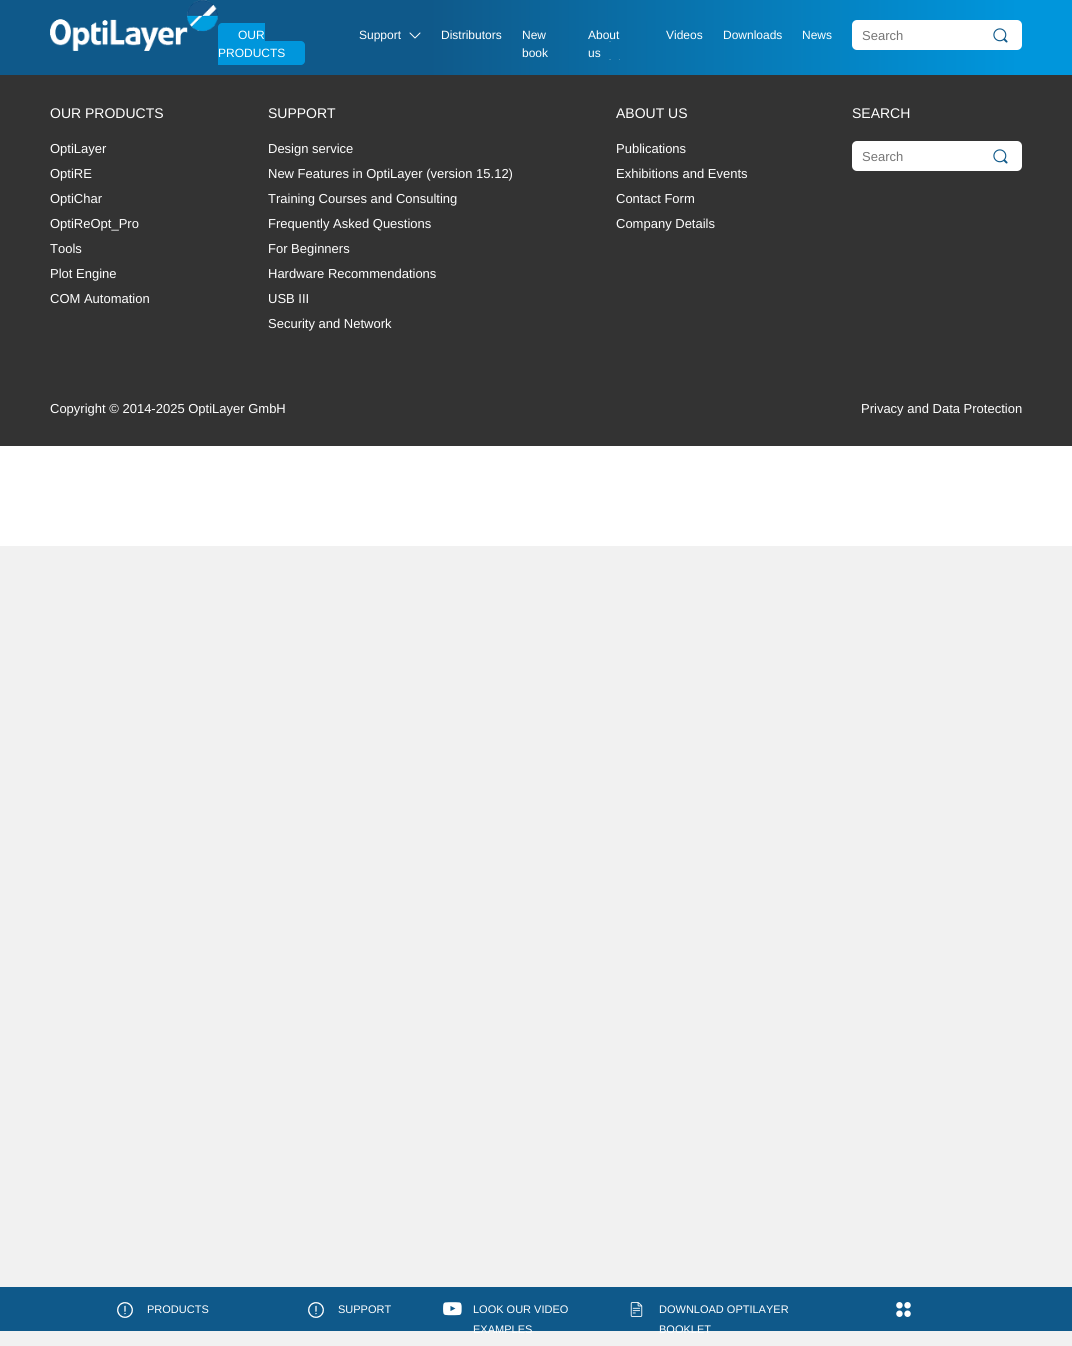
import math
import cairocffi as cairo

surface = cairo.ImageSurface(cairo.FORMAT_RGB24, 1072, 1346)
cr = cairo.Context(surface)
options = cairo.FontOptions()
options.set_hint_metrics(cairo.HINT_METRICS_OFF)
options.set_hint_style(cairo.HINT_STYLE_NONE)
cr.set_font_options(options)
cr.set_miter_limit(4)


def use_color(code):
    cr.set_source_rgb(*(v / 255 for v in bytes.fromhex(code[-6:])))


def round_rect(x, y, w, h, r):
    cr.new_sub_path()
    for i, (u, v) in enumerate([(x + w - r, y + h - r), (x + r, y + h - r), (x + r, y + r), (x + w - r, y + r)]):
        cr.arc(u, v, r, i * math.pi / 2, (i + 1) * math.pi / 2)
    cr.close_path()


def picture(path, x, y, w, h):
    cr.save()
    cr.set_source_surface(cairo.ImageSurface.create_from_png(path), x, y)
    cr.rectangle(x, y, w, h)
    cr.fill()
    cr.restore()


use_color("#f1f1f1")
cr.paint()
gradient = cairo.LinearGradient(0, 46, 1072, 45)
gradient.add_color_stop_rgba(0.4, 0.059, 0.349, 0.541, 1)
gradient.add_color_stop_rgba(0.95, 0, 0.588, 0.863, 1)
cr.set_source(gradient)
cr.rectangle(0, 0, 1072, 75)
cr.fill()
picture("img1.png", 50, 0, 168, 51)
use_color("#0096dc")
cr.new_path()
cr.move_to(222, 23)
cr.line_to(265, 23)
cr.line_to(265, 47)
cr.line_to(222, 47)
cr.curve_to(220, 47, 218, 45, 218, 43)
cr.line_to(218, 27)
cr.curve_to(218, 25, 220, 23, 222, 23)
cr.close_path()
cr.fill()
cr.select_font_face("Liberation Sans")
cr.set_font_size(12)
use_color("#ffffff")
cr.move_to(238, 39)
cr.show_text("OUR")
use_color("#0096dc")
cr.new_path()
cr.move_to(218, 41)
cr.line_to(301, 41)
cr.curve_to(303, 41, 305, 43, 305, 45)
cr.line_to(305, 61)
cr.curve_to(305, 63, 303, 65, 301, 65)
cr.line_to(218, 65)
cr.close_path()
cr.fill()
use_color("#ffffff")
cr.move_to(218, 57)
cr.show_text("PRODUCTS")
cr.move_to(359, 39)
cr.show_text("Support")
cr.new_path()
cr.move_to(410, 33)
cr.line_to(415, 38)
cr.line_to(420, 33)
cr.set_line_width(1)
cr.set_line_cap(cairo.LINE_CAP_ROUND)
cr.set_line_join(cairo.LINE_JOIN_ROUND)
cr.stroke()
cr.move_to(441, 39)
cr.show_text("Distributors")
cr.move_to(522, 39)
cr.show_text("New")
cr.move_to(522, 57)
cr.show_text("book")
cr.move_to(588, 39)
cr.show_text("About")
cr.save()
cr.rectangle(609, 41, 10, 1)
cr.clip()
cr.new_path()
cr.move_to(610, 42)
cr.line_to(615, 47)
cr.line_to(620, 42)
cr.stroke()
cr.restore()
cr.move_to(588, 57)
cr.show_text("us")
cr.save()
cr.rectangle(609, 59, 11, 1)
cr.clip()
cr.new_path()
cr.move_to(610, 60)
cr.line_to(615, 65)
cr.line_to(620, 60)
cr.stroke()
cr.restore()
cr.move_to(666, 39)
cr.show_text("Videos")
cr.move_to(723, 39)
cr.show_text("Downloads")
cr.move_to(802, 39)
cr.show_text("News")
round_rect(852, 20, 170, 30, 5)
cr.fill()
cr.set_font_size(13)
use_color("#757575")
cr.move_to(862, 40)
cr.show_text("Search")
picture("img2.png", 993, 28, 15, 15)
use_color("#ffffff")
cr.rectangle(0, 446, 1072, 100)
cr.fill()
use_color("#333333")
cr.rectangle(0, 75, 1072, 371)
cr.fill()
cr.set_font_size(14)
use_color("#ffffff")
cr.move_to(50, 118)
cr.show_text("OUR PRODUCTS")
cr.set_font_size(13)
cr.move_to(50, 153)
cr.show_text("OptiLayer")
cr.move_to(50, 178)
cr.show_text("OptiRE")
cr.move_to(50, 203)
cr.show_text("OptiChar")
cr.move_to(50, 228)
cr.show_text("OptiReOpt_Pro")
cr.move_to(50, 253)
cr.show_text("Tools")
cr.move_to(50, 278)
cr.show_text("Plot Engine")
cr.move_to(50, 303)
cr.show_text("COM Automation")
cr.set_font_size(14)
cr.move_to(268, 118)
cr.show_text("SUPPORT")
cr.set_font_size(13)
cr.move_to(268, 153)
cr.show_text("Design service")
cr.move_to(268, 178)
cr.show_text("New Features in OptiLayer (version 15.12)")
cr.move_to(268, 203)
cr.show_text("Training Courses and Consulting")
cr.move_to(268, 228)
cr.show_text("Frequently Asked Questions")
cr.move_to(268, 253)
cr.show_text("For Beginners")
cr.move_to(268, 278)
cr.show_text("Hardware Recommendations")
cr.move_to(268, 303)
cr.show_text("USB III")
cr.move_to(268, 328)
cr.show_text("Security and Network")
cr.set_font_size(14)
cr.move_to(616, 118)
cr.show_text("ABOUT US")
cr.set_font_size(13)
cr.move_to(616, 153)
cr.show_text("Publications")
cr.move_to(616, 178)
cr.show_text("Exhibitions and Events")
cr.move_to(616, 203)
cr.show_text("Contact Form")
cr.move_to(616, 228)
cr.show_text("Company Details")
cr.set_font_size(14)
cr.move_to(852, 118)
cr.show_text("SEARCH")
round_rect(852, 141, 170, 30, 5)
cr.fill()
cr.set_font_size(13)
use_color("#757575")
cr.move_to(862, 161)
cr.show_text("Search")
picture("img2.png", 993, 149, 15, 15)
use_color("#ffffff")
cr.move_to(50, 413)
cr.show_text("Copyright © 2014-2025 OptiLayer GmbH")
cr.move_to(861, 413)
cr.show_text("Privacy and Data Protection")
use_color("#0f598a")
cr.rectangle(0, 1287, 1072, 44)
cr.fill()
picture("img3.png", 117, 1302, 16, 16)
cr.set_font_size(11)
use_color("#ffffff")
cr.move_to(147, 1313)
cr.show_text("PRODUCTS")
picture("img3.png", 308, 1302, 16, 16)
cr.move_to(338, 1313)
cr.show_text("SUPPORT")
picture("img4.png", 443, 1302, 19, 14)
cr.move_to(473, 1313)
cr.show_text("LOOK OUR VIDEO")
cr.move_to(473, 1333)
cr.show_text("EXAMPLES")
picture("img5.png", 630, 1302, 13, 15)
cr.move_to(659, 1313)
cr.show_text("DOWNLOAD OPTILAYER")
cr.move_to(659, 1333)
cr.show_text("BOOKLET")
picture("img6.png", 896, 1302, 15, 15)
surface.write_to_png("result.png")
